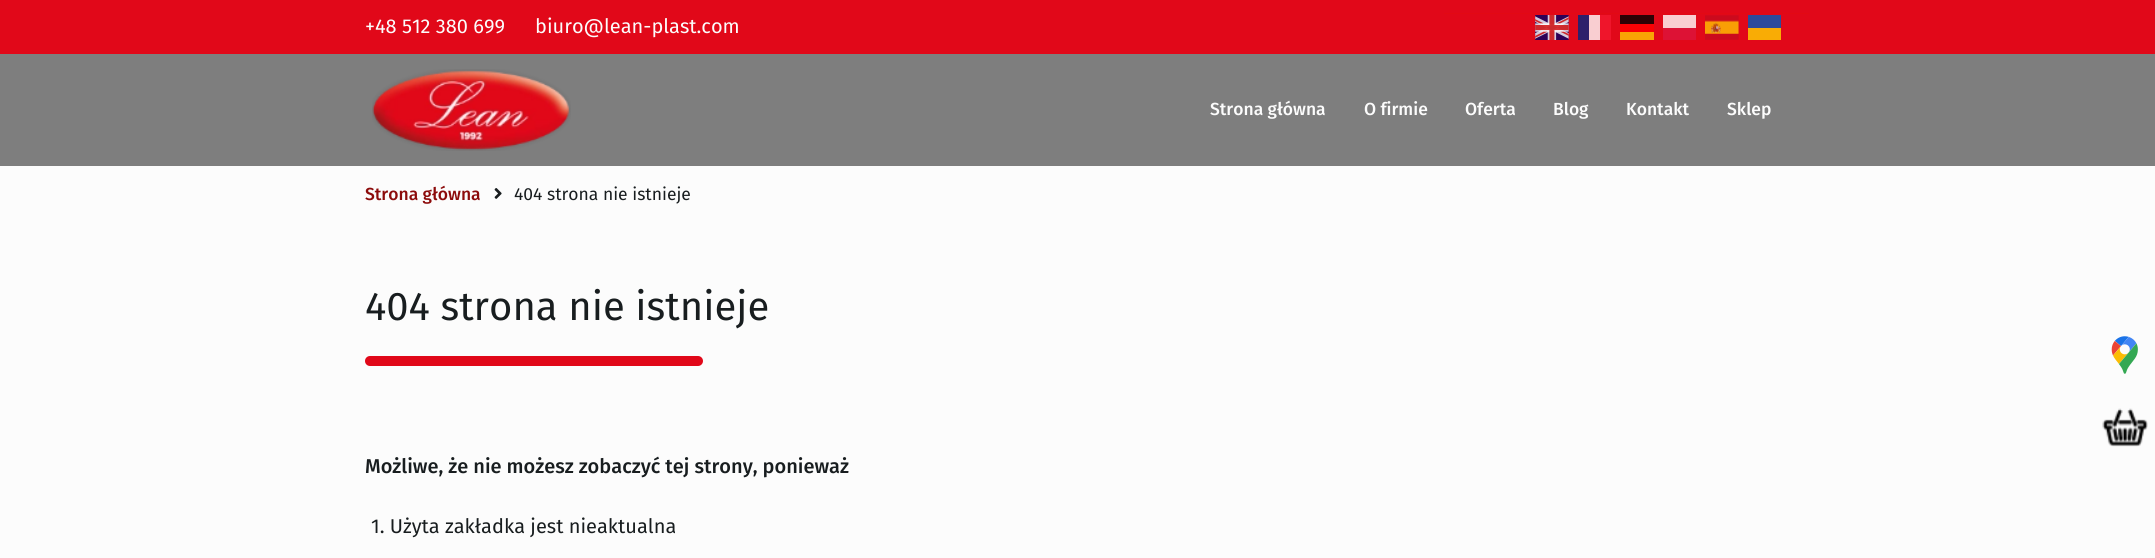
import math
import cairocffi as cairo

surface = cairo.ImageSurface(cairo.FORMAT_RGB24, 2155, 558)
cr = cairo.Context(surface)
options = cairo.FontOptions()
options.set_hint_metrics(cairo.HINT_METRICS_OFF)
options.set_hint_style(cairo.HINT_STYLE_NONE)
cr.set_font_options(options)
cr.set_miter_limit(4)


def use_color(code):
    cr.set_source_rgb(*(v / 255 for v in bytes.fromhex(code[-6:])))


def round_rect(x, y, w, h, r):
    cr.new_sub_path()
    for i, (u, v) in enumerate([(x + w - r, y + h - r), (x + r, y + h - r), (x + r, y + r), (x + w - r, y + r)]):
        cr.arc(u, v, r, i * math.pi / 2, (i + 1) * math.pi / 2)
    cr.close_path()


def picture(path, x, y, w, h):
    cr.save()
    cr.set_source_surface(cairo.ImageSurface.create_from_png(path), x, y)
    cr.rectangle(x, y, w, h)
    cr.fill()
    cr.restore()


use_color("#fcfcfc")
cr.paint()
use_color("#e10819")
cr.rectangle(0, 0, 2155, 54)
cr.fill()
cr.select_font_face("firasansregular")
cr.set_font_size(20)
use_color("#fcfcfc")
cr.move_to(365, 33)
cr.show_text("+48 512 380 699")
cr.move_to(535, 33)
cr.show_text("biuro@lean-plast.com")
use_color("#e30914")
cr.rectangle(1444, 13, 365, 1)
cr.fill()
picture("img1.png", 1535, 15, 34, 25)
use_color("#2d206b")
cr.rectangle(1578, 15, 11, 25)
cr.fill()
use_color("#f9ced1")
cr.rectangle(1589, 15, 11, 25)
cr.fill()
use_color("#ef152b")
cr.rectangle(1600, 15, 11, 25)
cr.fill()
use_color("#2d0205")
cr.rectangle(1620, 15, 34, 9)
cr.fill()
use_color("#f90205")
cr.rectangle(1620, 24, 34, 8)
cr.fill()
use_color("#f9a505")
cr.rectangle(1620, 32, 34, 8)
cr.fill()
use_color("#f9ced1")
cr.rectangle(1663, 15, 33, 13)
cr.fill()
use_color("#dd1235")
cr.rectangle(1663, 28, 33, 12)
cr.fill()
picture("img2.png", 1705, 15, 34, 25)
use_color("#2d4a9b")
cr.rectangle(1748, 15, 33, 13)
cr.fill()
use_color("#f9ac05")
cr.rectangle(1748, 28, 33, 12)
cr.fill()
use_color("#7e7e7e")
cr.rectangle(0, 54, 2155, 112)
cr.fill()
picture("img3.png", 372, 69, 199, 82)
cr.select_font_face("Fira Sans Medium")
cr.set_font_size(17.5)
use_color("#fcfcfc")
cr.move_to(1210, 115)
cr.show_text("Strona główna")
cr.move_to(1364, 115)
cr.show_text("O firmie")
cr.move_to(1465, 115)
cr.show_text("Oferta")
cr.move_to(1553, 115)
cr.show_text("Blog")
cr.move_to(1626, 115)
cr.show_text("Kontakt")
cr.move_to(1727, 115)
cr.show_text("Sklep")
use_color("#8c0b0b")
cr.move_to(365, 200)
cr.show_text("Strona główna")
picture("img4.png", 494, 188, 8, 11)
cr.select_font_face("firasansregular")
use_color("#181d1f")
cr.move_to(514, 200)
cr.show_text("404 strona nie istnieje")
cr.set_font_size(40)
cr.move_to(365, 320)
cr.show_text("404 strona nie istnieje")
use_color("#e10819")
round_rect(365, 356, 338, 10, 5)
cr.fill()
cr.select_font_face("Fira Sans Medium")
cr.set_font_size(20)
use_color("#181d1f")
cr.move_to(365, 473)
cr.show_text("Możliwe, że nie możesz zobaczyć tej strony, ponieważ")
cr.select_font_face("firasansregular")
cr.move_to(371, 533)
cr.show_text("1. Użyta zakładka jest nieaktualna")
picture("img5.png", 2111, 336, 27, 38)
picture("img6.png", 2102, 408, 46, 39)
surface.write_to_png("result.png")
